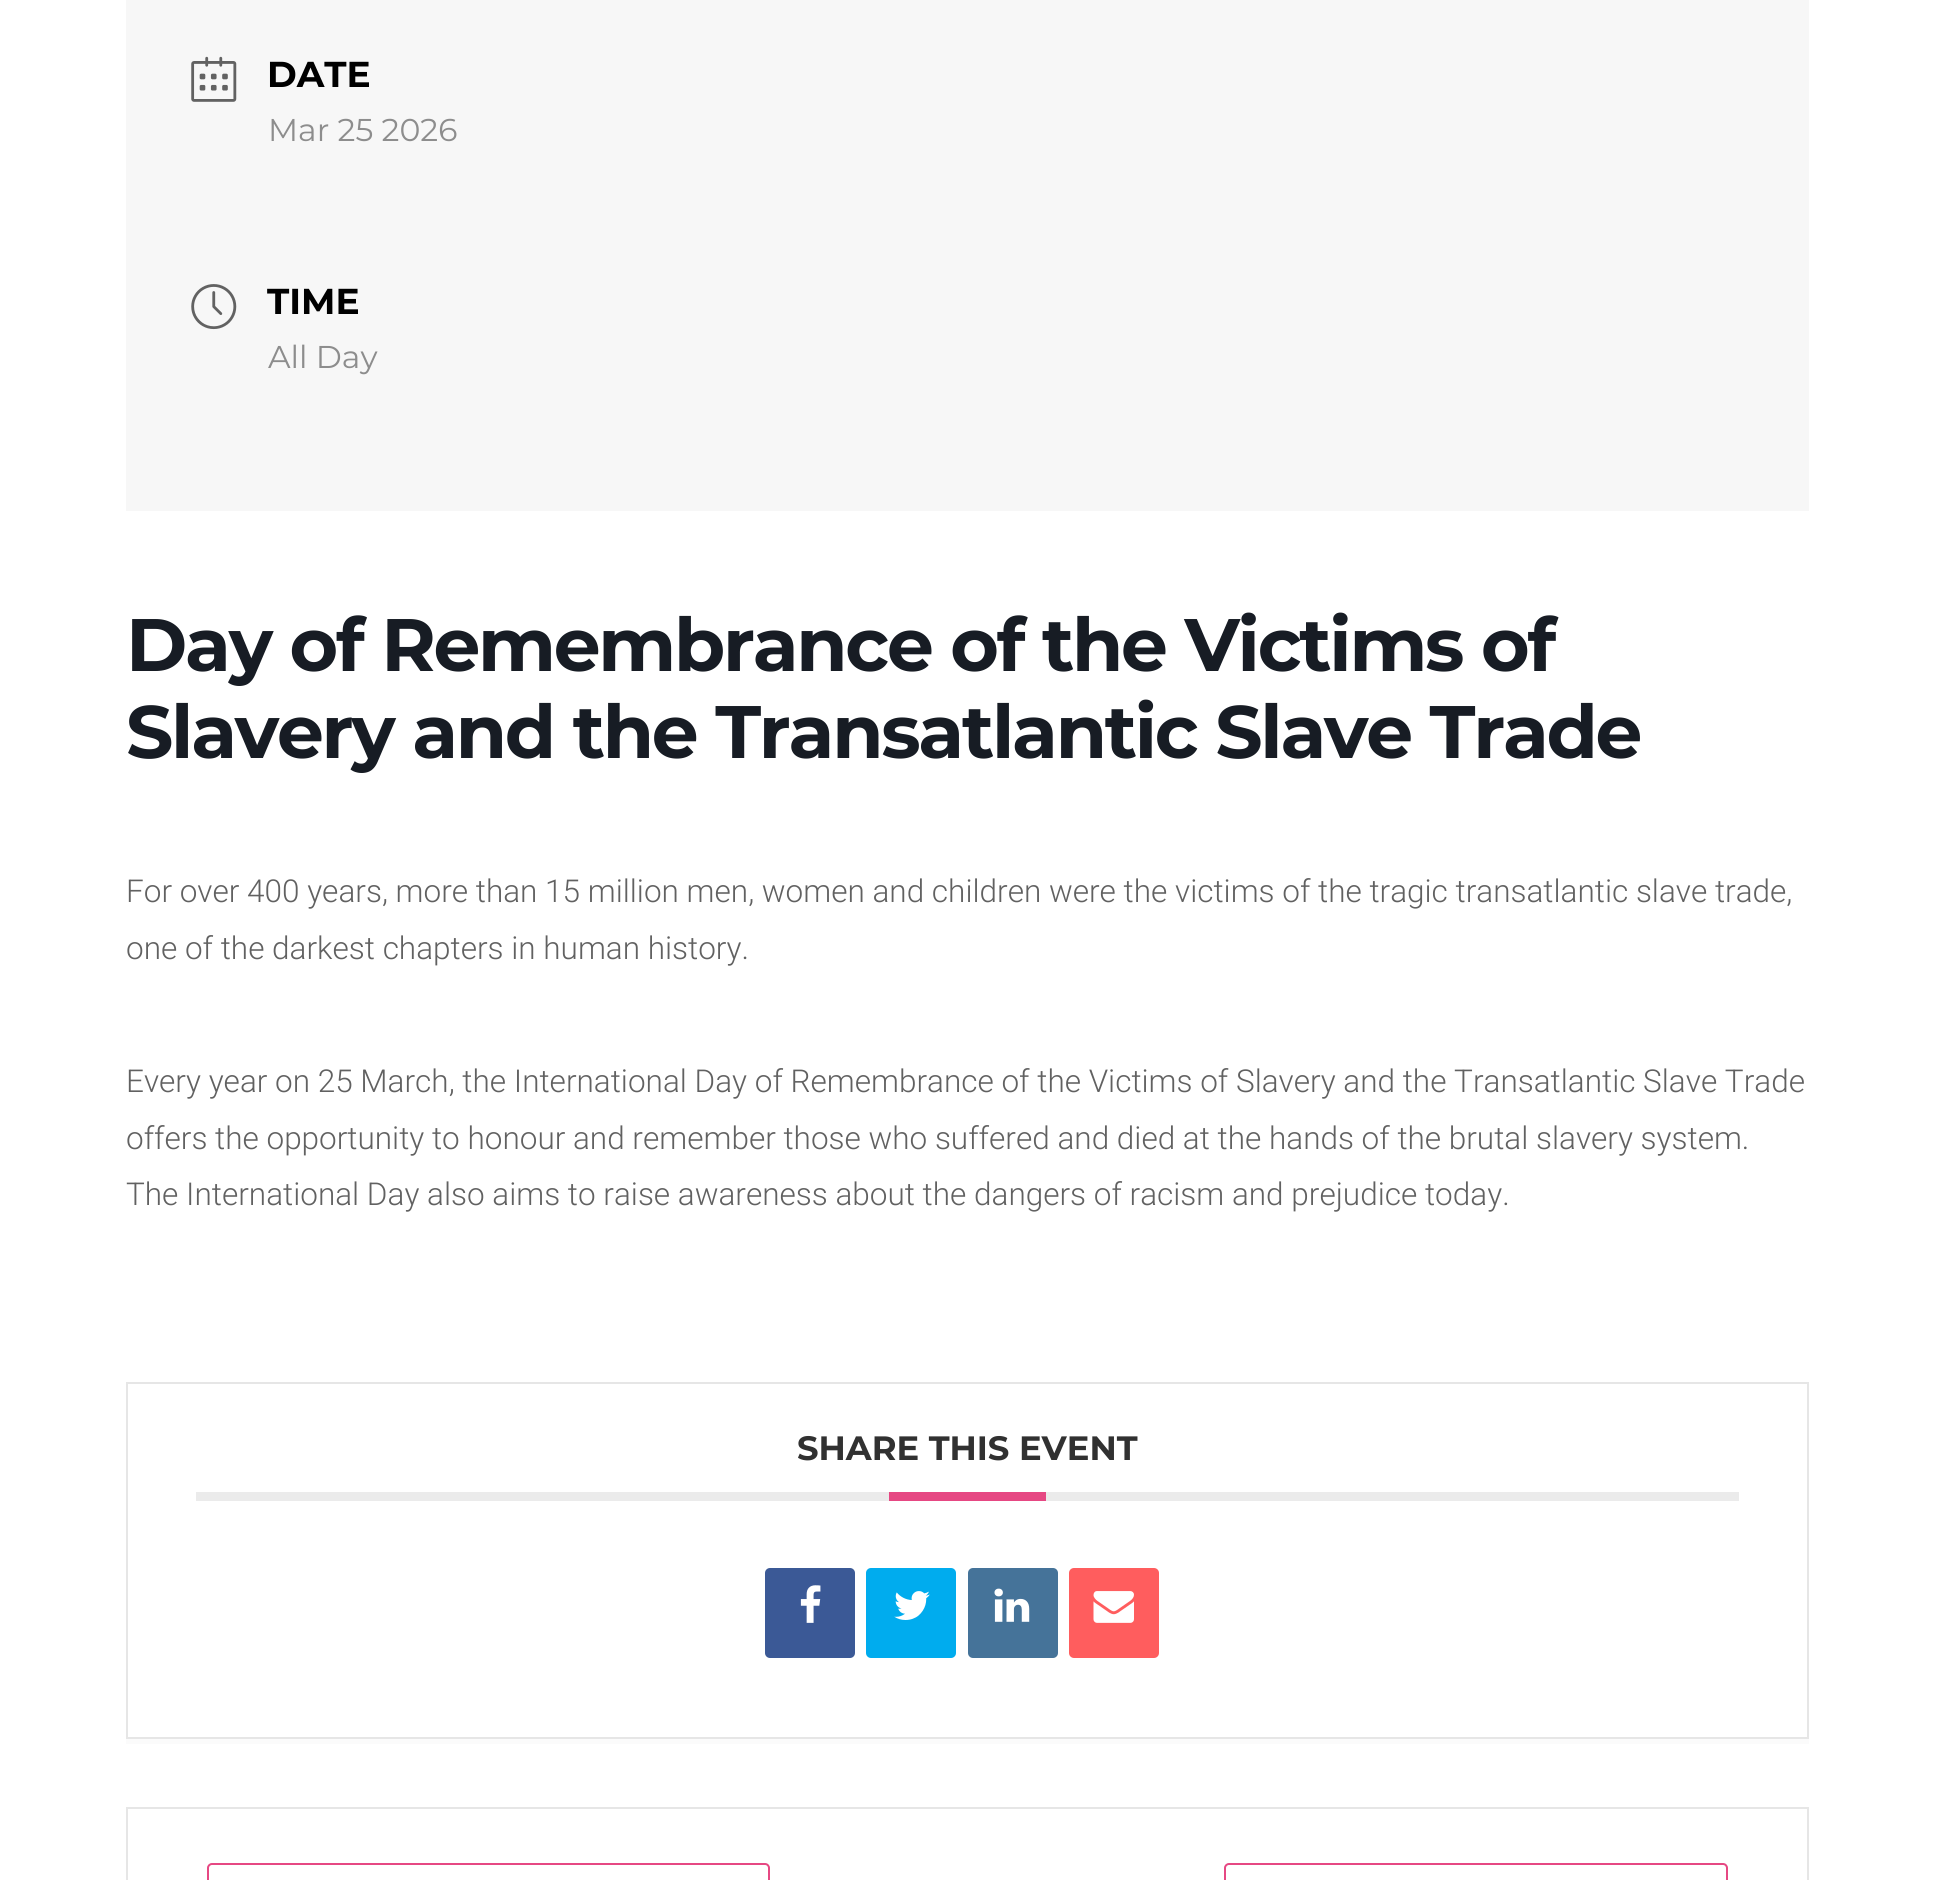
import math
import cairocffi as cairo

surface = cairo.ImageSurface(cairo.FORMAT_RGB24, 1935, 1880)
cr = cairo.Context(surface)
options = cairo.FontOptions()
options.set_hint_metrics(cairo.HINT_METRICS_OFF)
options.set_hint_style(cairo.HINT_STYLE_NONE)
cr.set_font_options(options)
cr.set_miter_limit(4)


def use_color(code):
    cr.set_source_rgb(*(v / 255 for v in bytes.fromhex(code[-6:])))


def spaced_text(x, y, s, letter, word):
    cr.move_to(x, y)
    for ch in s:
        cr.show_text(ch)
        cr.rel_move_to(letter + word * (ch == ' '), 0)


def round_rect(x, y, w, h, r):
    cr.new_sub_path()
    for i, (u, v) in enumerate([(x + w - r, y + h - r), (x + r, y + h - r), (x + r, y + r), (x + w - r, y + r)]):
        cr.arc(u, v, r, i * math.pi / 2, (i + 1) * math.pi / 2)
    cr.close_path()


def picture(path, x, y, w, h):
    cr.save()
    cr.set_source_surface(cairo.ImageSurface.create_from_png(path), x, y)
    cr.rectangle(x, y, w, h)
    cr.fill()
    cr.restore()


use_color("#ffffff")
cr.paint()
use_color("#f7f7f7")
cr.rectangle(126, 0, 1683, 511)
cr.fill()
picture("img1.png", 191, 56, 46, 46)
cr.select_font_face("Montserrat", cairo.FONT_SLANT_NORMAL, cairo.FONT_WEIGHT_BOLD)
cr.set_font_size(36)
use_color("#000000")
cr.move_to(267, 87)
cr.show_text("DATE")
cr.select_font_face("Montserrat")
cr.set_font_size(31.5)
use_color("#8d8d8d")
cr.move_to(268, 141)
cr.show_text("Mar 25 2026")
picture("img2.png", 191, 284, 46, 46)
cr.select_font_face("Montserrat", cairo.FONT_SLANT_NORMAL, cairo.FONT_WEIGHT_BOLD)
cr.set_font_size(36)
use_color("#000000")
cr.move_to(267, 314)
cr.show_text("TIME")
cr.select_font_face("Montserrat")
cr.set_font_size(31.5)
use_color("#8d8d8d")
cr.move_to(268, 368)
cr.show_text("All Day")
cr.select_font_face("Montserrat", cairo.FONT_SLANT_NORMAL, cairo.FONT_WEIGHT_BOLD)
cr.set_font_size(74.25)
use_color("#171c24")
spaced_text(126, 671, "Day of Remembrance of the Victims of", -2.25, 0)
spaced_text(126, 758, "Slavery and the Transatlantic Slave Trade", -2.25, 0)
cr.select_font_face("Roboto Light")
cr.set_font_size(31.5)
use_color("#616161")
cr.move_to(126, 902)
cr.show_text("For over 400 years, more than 15 million men, women and children were the victims of the tragic transatlantic slave trade,")
cr.move_to(126, 959)
cr.show_text("one of the darkest chapters in human history.")
cr.move_to(126, 1092)
cr.show_text("Every year on 25 March, the International Day of Remembrance of the Victims of Slavery and the Transatlantic Slave Trade")
cr.move_to(126, 1149)
cr.show_text("offers the opportunity to honour and remember those who suffered and died at the hands of the brutal slavery system.")
cr.move_to(126, 1205)
cr.show_text("The International Day also aims to raise awareness about the dangers of racism and prejudice today.")
use_color("#fbfbfb")
cr.rectangle(126, 1739, 1683, 5)
cr.fill()
cr.rectangle(127, 1383, 1681, 355)
use_color("#e6e6e6")
cr.stroke()
use_color("#ebebeb")
cr.rectangle(196, 1492, 1543, 9)
cr.fill()
cr.select_font_face("Montserrat", cairo.FONT_SLANT_NORMAL, cairo.FONT_WEIGHT_BOLD)
cr.set_font_size(33.75)
use_color("#313131")
cr.move_to(797, 1460)
cr.show_text("SHARE THIS EVENT")
use_color("#e64883")
cr.rectangle(889, 1492, 157, 9)
cr.fill()
use_color("#3b5996")
round_rect(765, 1568, 90, 90, 5)
cr.fill()
picture("img3.png", 800, 1585, 21, 38)
use_color("#00acee")
round_rect(866, 1568, 90, 90, 5)
cr.fill()
picture("img4.png", 894, 1591, 36, 29)
use_color("#457399")
round_rect(968, 1568, 90, 90, 5)
cr.fill()
picture("img5.png", 994, 1588, 36, 34)
use_color("#ff5d5e")
round_rect(1069, 1568, 90, 90, 5)
cr.fill()
picture("img6.png", 1093, 1591, 41, 32)
cr.rectangle(127, 1808, 1681, 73)
use_color("#e6e6e6")
cr.stroke()
round_rect(208, 1864, 561, 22, 4)
use_color("#e64883")
cr.stroke()
round_rect(1225, 1864, 502, 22, 4)
cr.stroke()
surface.write_to_png("result.png")
